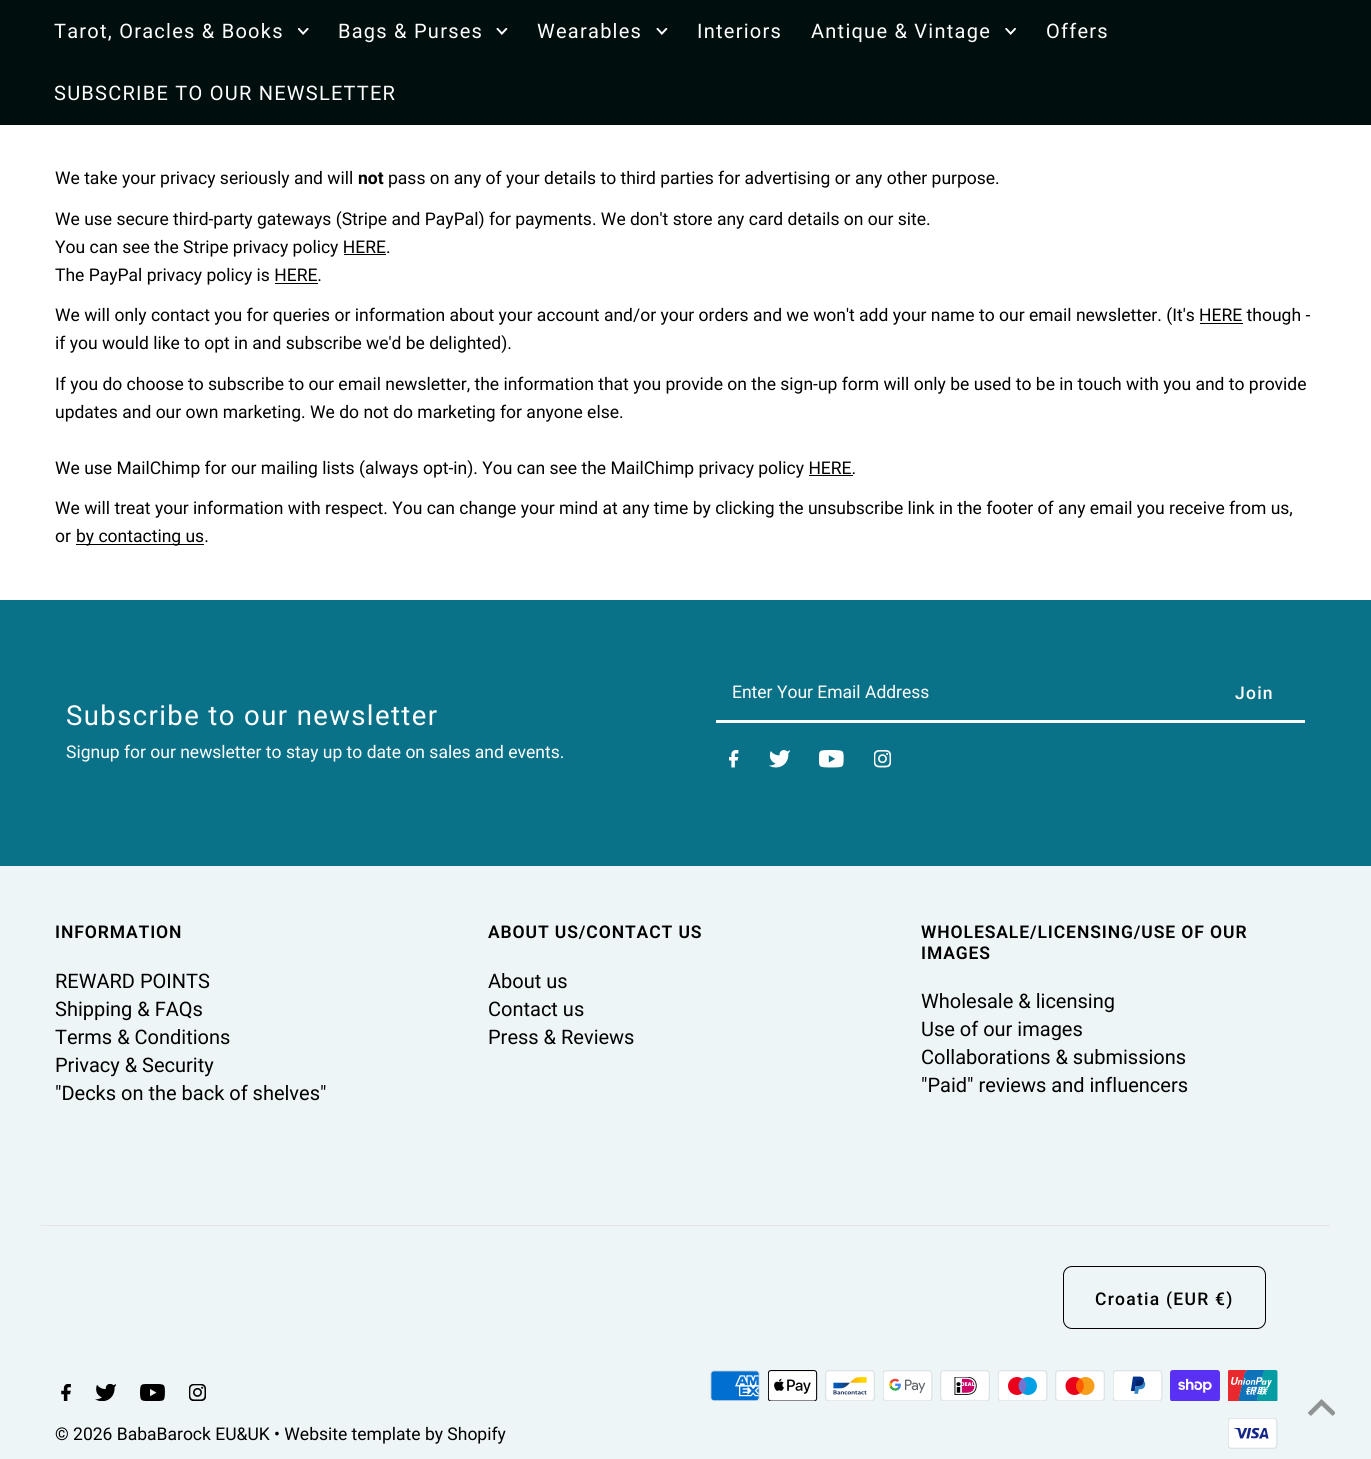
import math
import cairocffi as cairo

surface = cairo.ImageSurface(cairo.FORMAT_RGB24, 1371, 1459)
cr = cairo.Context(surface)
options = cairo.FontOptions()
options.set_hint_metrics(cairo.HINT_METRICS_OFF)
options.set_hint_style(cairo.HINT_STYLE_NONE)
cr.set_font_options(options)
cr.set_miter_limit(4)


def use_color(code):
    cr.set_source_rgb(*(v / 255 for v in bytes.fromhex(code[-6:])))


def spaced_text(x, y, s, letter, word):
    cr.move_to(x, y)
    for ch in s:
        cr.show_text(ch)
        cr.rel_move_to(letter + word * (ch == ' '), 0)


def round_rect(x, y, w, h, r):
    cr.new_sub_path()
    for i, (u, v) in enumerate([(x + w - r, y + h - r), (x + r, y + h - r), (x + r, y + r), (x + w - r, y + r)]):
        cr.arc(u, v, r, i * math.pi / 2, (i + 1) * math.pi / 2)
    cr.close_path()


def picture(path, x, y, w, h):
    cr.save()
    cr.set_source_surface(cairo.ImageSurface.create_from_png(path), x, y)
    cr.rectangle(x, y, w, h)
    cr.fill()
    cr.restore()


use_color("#ffffff")
cr.paint()
use_color("#000e0e")
cr.rectangle(0, 0, 1371, 125)
cr.fill()
cr.select_font_face("Roboto")
cr.set_font_size(20)
use_color("#ffffff")
spaced_text(54, 38, "Tarot, Oracles & Books", 1.25, 0)
picture("img1.png", 298, 28, 11, 7)
spaced_text(338, 38, "Bags & Purses", 1.25, 0)
picture("img2.png", 496, 28, 12, 7)
spaced_text(537, 38, "Wearables", 1.25, 0)
picture("img2.png", 656, 28, 12, 7)
spaced_text(697, 38, "Interiors", 1.25, 0)
spaced_text(811, 38, "Antique & Vintage", 1.25, 0)
picture("img3.png", 1005, 28, 11, 7)
spaced_text(1046, 38, "Offers", 1.25, 0)
spaced_text(54, 100, "SUBSCRIBE TO OUR NEWSLETTER", 1.25, 0)
cr.set_font_size(17.5)
use_color("#000000")
cr.move_to(55, 184)
cr.show_text("We take your privacy seriously and will")
cr.select_font_face("Roboto", cairo.FONT_SLANT_NORMAL, cairo.FONT_WEIGHT_BOLD)
cr.move_to(358, 184)
cr.show_text("not")
cr.select_font_face("Roboto")
cr.move_to(388, 184)
cr.show_text("pass on any of your details to third parties for advertising or any other purpose.")
cr.move_to(55, 225)
cr.show_text("We use secure third-party gateways (Stripe and PayPal) for payments. We don't store any card details on our site.")
cr.move_to(55, 253)
cr.show_text("You can see the Stripe privacy policy HERE.")
cr.rectangle(344, 254, 42, 1)
cr.fill()
cr.move_to(55, 281)
cr.show_text("The PayPal privacy policy is HERE.")
cr.rectangle(275, 283, 43, 1)
cr.fill()
cr.move_to(55, 321)
cr.show_text("We will only contact you for queries or information about your account and/or your orders and we won't add your name to our email newsletter. (It's HERE though -")
cr.rectangle(1200, 323, 43, 1)
cr.fill()
cr.move_to(55, 349)
cr.show_text("if you would like to opt in and subscribe we'd be delighted).")
cr.move_to(55, 390)
cr.show_text("If you do choose to subscribe to our email newsletter, the information that you provide on the sign-up form will only be used to be in touch with you and to provide")
cr.move_to(55, 418)
cr.show_text("updates and our own marketing. We do not do marketing for anyone else.")
cr.move_to(55, 474)
cr.show_text("We use MailChimp for our mailing lists (always opt-in). You can see the MailChimp privacy policy HERE.")
cr.rectangle(809, 475, 44, 1)
cr.fill()
cr.move_to(55, 514)
cr.show_text("We will treat your information with respect. You can change your mind at any time by clicking the unsubscribe link in the footer of any email you receive from us,")
cr.move_to(55, 542)
cr.show_text("or")
cr.rectangle(76, 544, 128, 1)
cr.fill()
cr.move_to(76, 542)
cr.show_text("by contacting us.")
use_color("#097289")
cr.rectangle(0, 600, 1371, 266)
cr.fill()
use_color("#ffffff")
cr.rectangle(716, 720, 589, 3)
cr.fill()
cr.move_to(732, 698)
cr.show_text("Enter Your Email Address")
cr.select_font_face("Roboto Medium")
spaced_text(1235, 699, "Join", 1.25, 0)
picture("img4.png", 729, 750, 10, 18)
picture("img5.png", 769, 750, 21, 18)
picture("img6.png", 819, 750, 25, 18)
picture("img7.png", 874, 750, 17, 18)
cr.select_font_face("Roboto")
cr.set_font_size(27.5)
spaced_text(66, 725, "Subscribe to our newsletter", 1.4, 0)
cr.set_font_size(17.5)
cr.move_to(66, 758)
cr.show_text("Signup for our newsletter to stay up to date on sales and events.")
use_color("#eef5f7")
cr.rectangle(0, 866, 1371, 593)
cr.fill()
cr.select_font_face("Roboto SemiBold")
use_color("#000000")
spaced_text(55, 938, "INFORMATION", 0.9, 0)
cr.select_font_face("Roboto")
cr.set_font_size(20)
cr.move_to(55, 988)
cr.show_text("REWARD POINTS")
cr.move_to(55, 1016)
cr.show_text("Shipping & FAQs")
cr.move_to(55, 1044)
cr.show_text("Terms & Conditions")
cr.move_to(55, 1072)
cr.show_text("Privacy & Security")
cr.move_to(55, 1100)
cr.show_text("\"Decks on the back of shelves\"")
cr.select_font_face("Roboto SemiBold")
cr.set_font_size(17.5)
spaced_text(488, 938, "ABOUT US/CONTACT US", 0.9, 0)
cr.select_font_face("Roboto")
cr.set_font_size(20)
cr.move_to(488, 988)
cr.show_text("About us")
cr.move_to(488, 1016)
cr.show_text("Contact us")
cr.move_to(488, 1044)
cr.show_text("Press & Reviews")
cr.select_font_face("Roboto SemiBold")
cr.set_font_size(17.5)
spaced_text(921, 938, "WHOLESALE/LICENSING/USE OF OUR", 0.9, 0)
spaced_text(921, 959, "IMAGES", 0.9, 0)
cr.select_font_face("Roboto")
cr.set_font_size(20)
cr.move_to(921, 1008)
cr.show_text("Wholesale & licensing")
cr.move_to(921, 1036)
cr.show_text("Use of our images")
cr.move_to(921, 1064)
cr.show_text("Collaborations & submissions")
cr.move_to(921, 1092)
cr.show_text("\"Paid\" reviews and influencers")
use_color("#e5e5e5")
cr.rectangle(41, 1225, 1289, 1)
cr.fill()
round_rect(1063.5, 1266.5, 202, 62, 8.5)
use_color("#000000")
cr.set_line_width(1)
cr.stroke()
cr.select_font_face("Roboto Medium")
cr.set_font_size(17.5)
spaced_text(1095, 1305, "Croatia (EUR €)", 1.25, 0)
picture("img8.png", 710, 1370, 50, 31)
picture("img9.png", 768, 1370, 50, 31)
picture("img10.png", 825, 1370, 50, 31)
picture("img11.png", 883, 1370, 50, 31)
picture("img12.png", 940, 1370, 50, 31)
picture("img13.png", 998, 1370, 50, 31)
picture("img14.png", 1055, 1370, 50, 31)
picture("img15.png", 1113, 1370, 50, 31)
picture("img16.png", 1170, 1370, 50, 31)
picture("img17.png", 1228, 1370, 50, 31)
picture("img18.png", 1228, 1418, 50, 31)
picture("img19.png", 61, 1384, 10, 17)
picture("img20.png", 95, 1384, 21, 17)
picture("img21.png", 140, 1384, 25, 17)
picture("img22.png", 189, 1384, 17, 17)
cr.select_font_face("Roboto")
cr.move_to(55, 1440)
cr.show_text("© 2026 BabaBarock EU&UK • Website template by Shopify")
cr.save()
cr.rectangle(1308, 1399, 27, 17)
cr.clip()
use_color("#8f9394")
cr.new_path()
cr.move_to(1321.5, 1399)
cr.line_to(1307.5, 1413)
cr.line_to(1311, 1416)
cr.line_to(1321.5, 1405.5)
cr.line_to(1332.5, 1416)
cr.line_to(1336, 1413)
cr.close_path()
cr.fill()
cr.restore()
surface.write_to_png("result.png")
